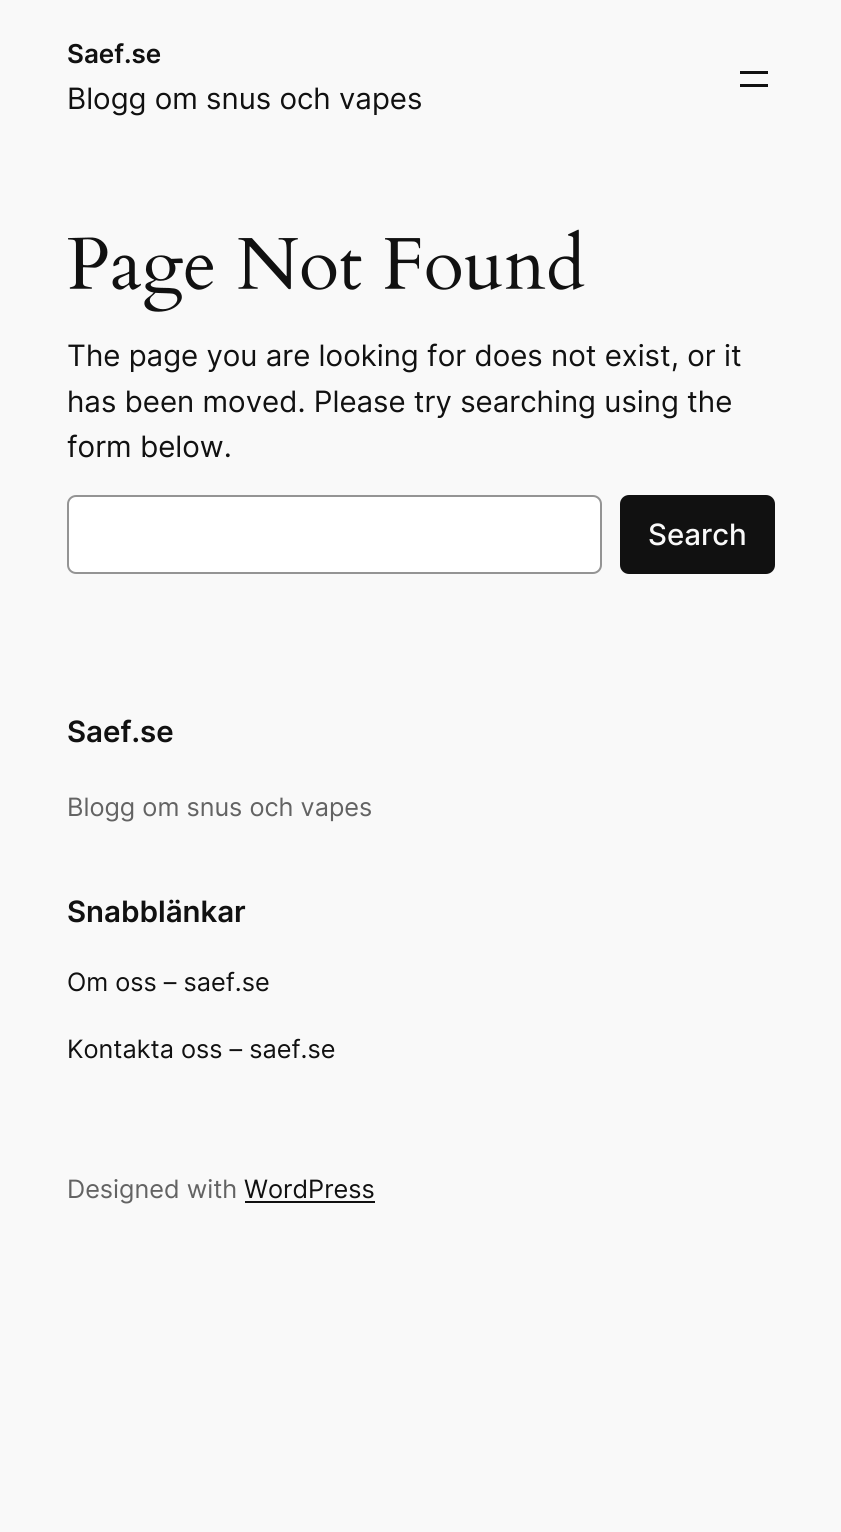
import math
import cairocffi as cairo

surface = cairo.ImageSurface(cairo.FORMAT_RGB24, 841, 1532)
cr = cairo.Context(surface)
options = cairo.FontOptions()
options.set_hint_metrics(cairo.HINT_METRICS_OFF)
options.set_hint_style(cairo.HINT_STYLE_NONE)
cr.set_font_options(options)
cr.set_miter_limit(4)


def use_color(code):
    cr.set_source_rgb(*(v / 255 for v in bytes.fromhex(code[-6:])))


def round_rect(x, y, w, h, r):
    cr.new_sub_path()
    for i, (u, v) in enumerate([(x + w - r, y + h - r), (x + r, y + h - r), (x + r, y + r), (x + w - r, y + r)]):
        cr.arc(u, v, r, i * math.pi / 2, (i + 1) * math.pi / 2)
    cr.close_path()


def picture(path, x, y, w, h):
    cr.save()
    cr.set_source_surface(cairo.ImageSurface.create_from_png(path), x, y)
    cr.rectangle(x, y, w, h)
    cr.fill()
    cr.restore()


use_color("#f9f9f9")
cr.paint()
cr.select_font_face("Inter SemiBold")
cr.set_font_size(26)
use_color("#111111")
cr.move_to(67, 63)
cr.show_text("Saef.se")
cr.select_font_face("Inter")
cr.set_font_size(29.4)
cr.move_to(67, 109)
cr.show_text("Blogg om snus och vapes")
cr.rectangle(740, 71, 28, 3)
cr.fill()
cr.rectangle(740, 84, 28, 3)
cr.fill()
picture("img1.png", 68, 229, 517, 83)
cr.move_to(67, 366)
cr.show_text("The page you are looking for does not exist, or it")
cr.move_to(67, 412)
cr.show_text("has been moved. Please try searching using the")
cr.move_to(67, 457)
cr.show_text("form below.")
use_color("#ffffff")
round_rect(68, 496, 533, 77, 8)
cr.fill_preserve()
use_color("#949494")
cr.stroke()
use_color("#111111")
round_rect(620, 495, 155, 79, 9)
cr.fill()
cr.select_font_face("Inter Medium")
use_color("#f9f9f9")
cr.move_to(648, 545)
cr.show_text("Search")
cr.select_font_face("Inter SemiBold")
use_color("#111111")
cr.move_to(67, 742)
cr.show_text("Saef.se")
cr.select_font_face("Inter")
cr.set_font_size(25.25)
use_color("#636363")
cr.move_to(67, 816)
cr.show_text("Blogg om snus och vapes")
cr.select_font_face("Inter SemiBold")
cr.set_font_size(29.4)
use_color("#111111")
cr.move_to(67, 922)
cr.show_text("Snabblänkar")
cr.select_font_face("Inter")
cr.set_font_size(25.25)
cr.move_to(67, 991)
cr.show_text("Om oss – saef.se")
cr.move_to(67, 1058)
cr.show_text("Kontakta oss – saef.se")
use_color("#636363")
cr.move_to(67, 1198)
cr.show_text("Designed with")
use_color("#111111")
cr.move_to(244, 1198)
cr.show_text("WordPress")
cr.rectangle(245, 1201, 130, 2)
cr.fill()
surface.write_to_png("result.png")
